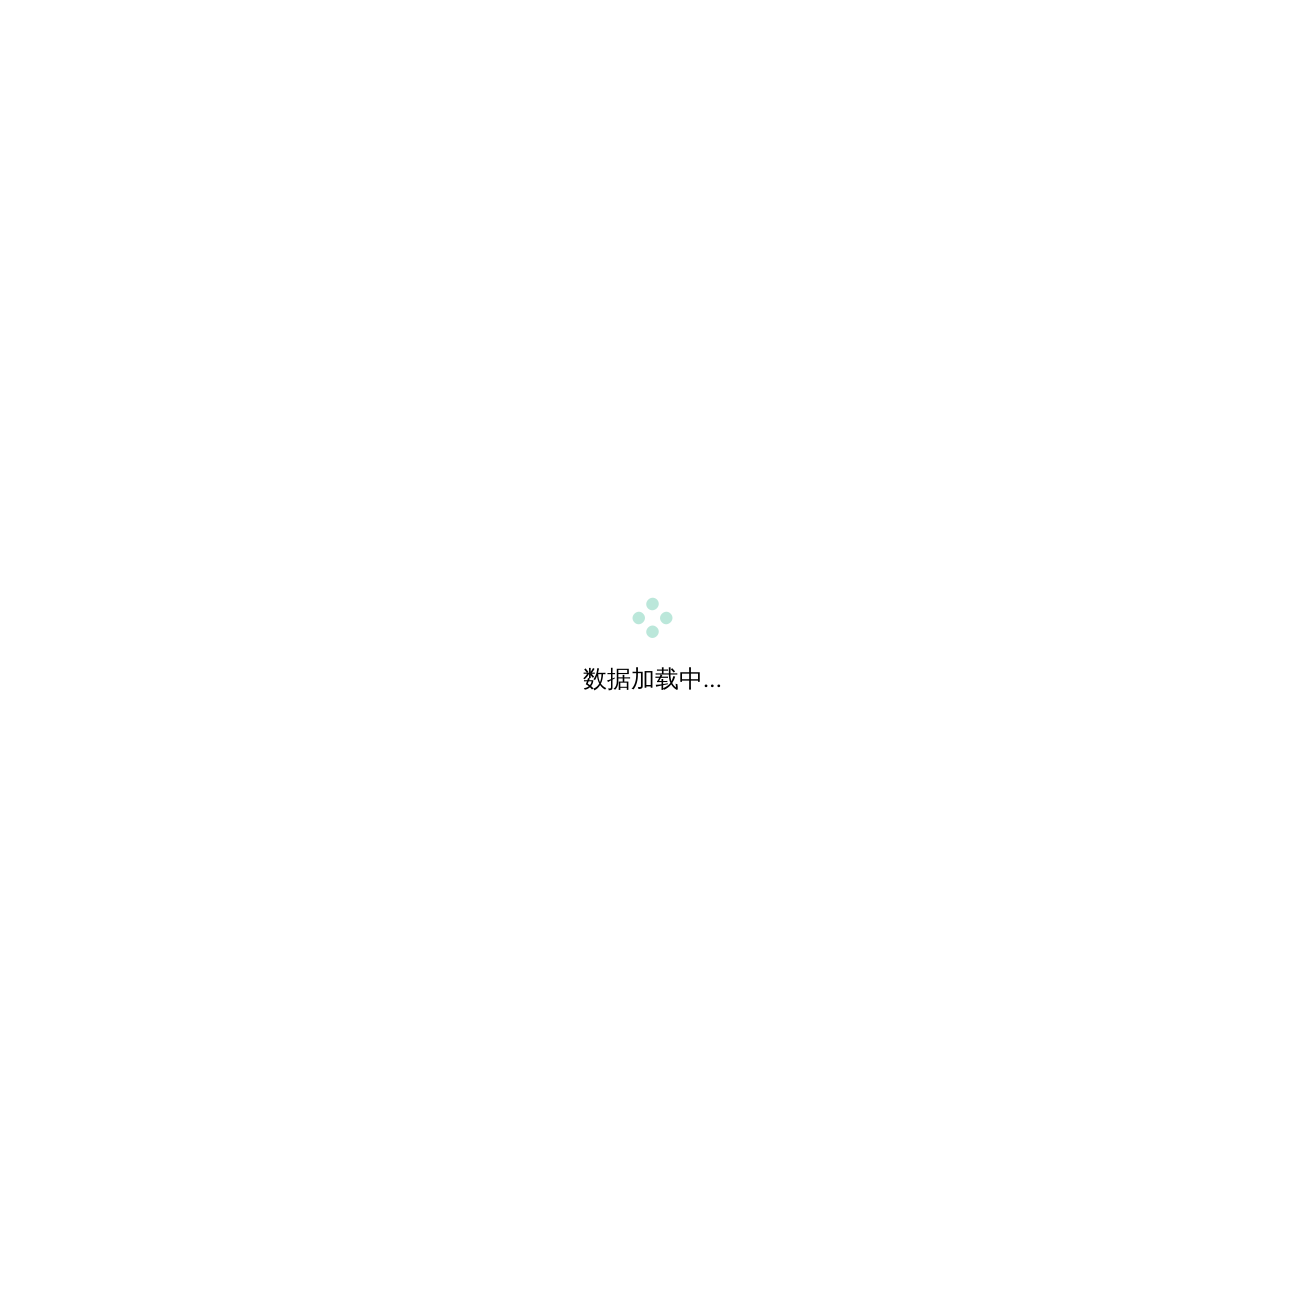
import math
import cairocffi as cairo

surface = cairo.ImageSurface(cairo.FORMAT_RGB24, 1305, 1297)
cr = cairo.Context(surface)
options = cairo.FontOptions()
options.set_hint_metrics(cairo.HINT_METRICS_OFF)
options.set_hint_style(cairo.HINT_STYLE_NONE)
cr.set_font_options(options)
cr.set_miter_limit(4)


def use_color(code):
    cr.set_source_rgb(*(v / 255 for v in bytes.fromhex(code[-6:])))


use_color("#ffffff")
cr.paint()
use_color("#bbe7da")
cr.new_path()
cr.move_to(657, 599.5)
cr.curve_to(662.5, 605.5, 654, 614, 648, 608.5)
cr.curve_to(642.5, 602.5, 651, 594, 657, 599.5)
cr.close_path()
cr.move_to(670.5, 613.5)
cr.curve_to(676.5, 619.5, 667.5, 628, 662, 622.5)
cr.curve_to(656, 616.5, 665, 608, 670.5, 613.5)
cr.close_path()
cr.move_to(657, 627.5)
cr.curve_to(662.5, 633, 654, 642, 648, 636)
cr.curve_to(642.5, 630.5, 651, 621.5, 657, 627.5)
cr.close_path()
cr.move_to(643, 613.5)
cr.curve_to(649, 619.5, 640, 628, 634.5, 622.5)
cr.curve_to(628.5, 616.5, 637.5, 608, 643, 613.5)
cr.close_path()
cr.fill()
cr.select_font_face("WenQuanYi Zen Hei Medium")
cr.set_font_size(24)
use_color("#000000")
cr.move_to(583, 687)
cr.show_text("数据加载中")
cr.select_font_face("Roboto")
cr.move_to(703, 687)
cr.show_text("...")
surface.write_to_png("result.png")
